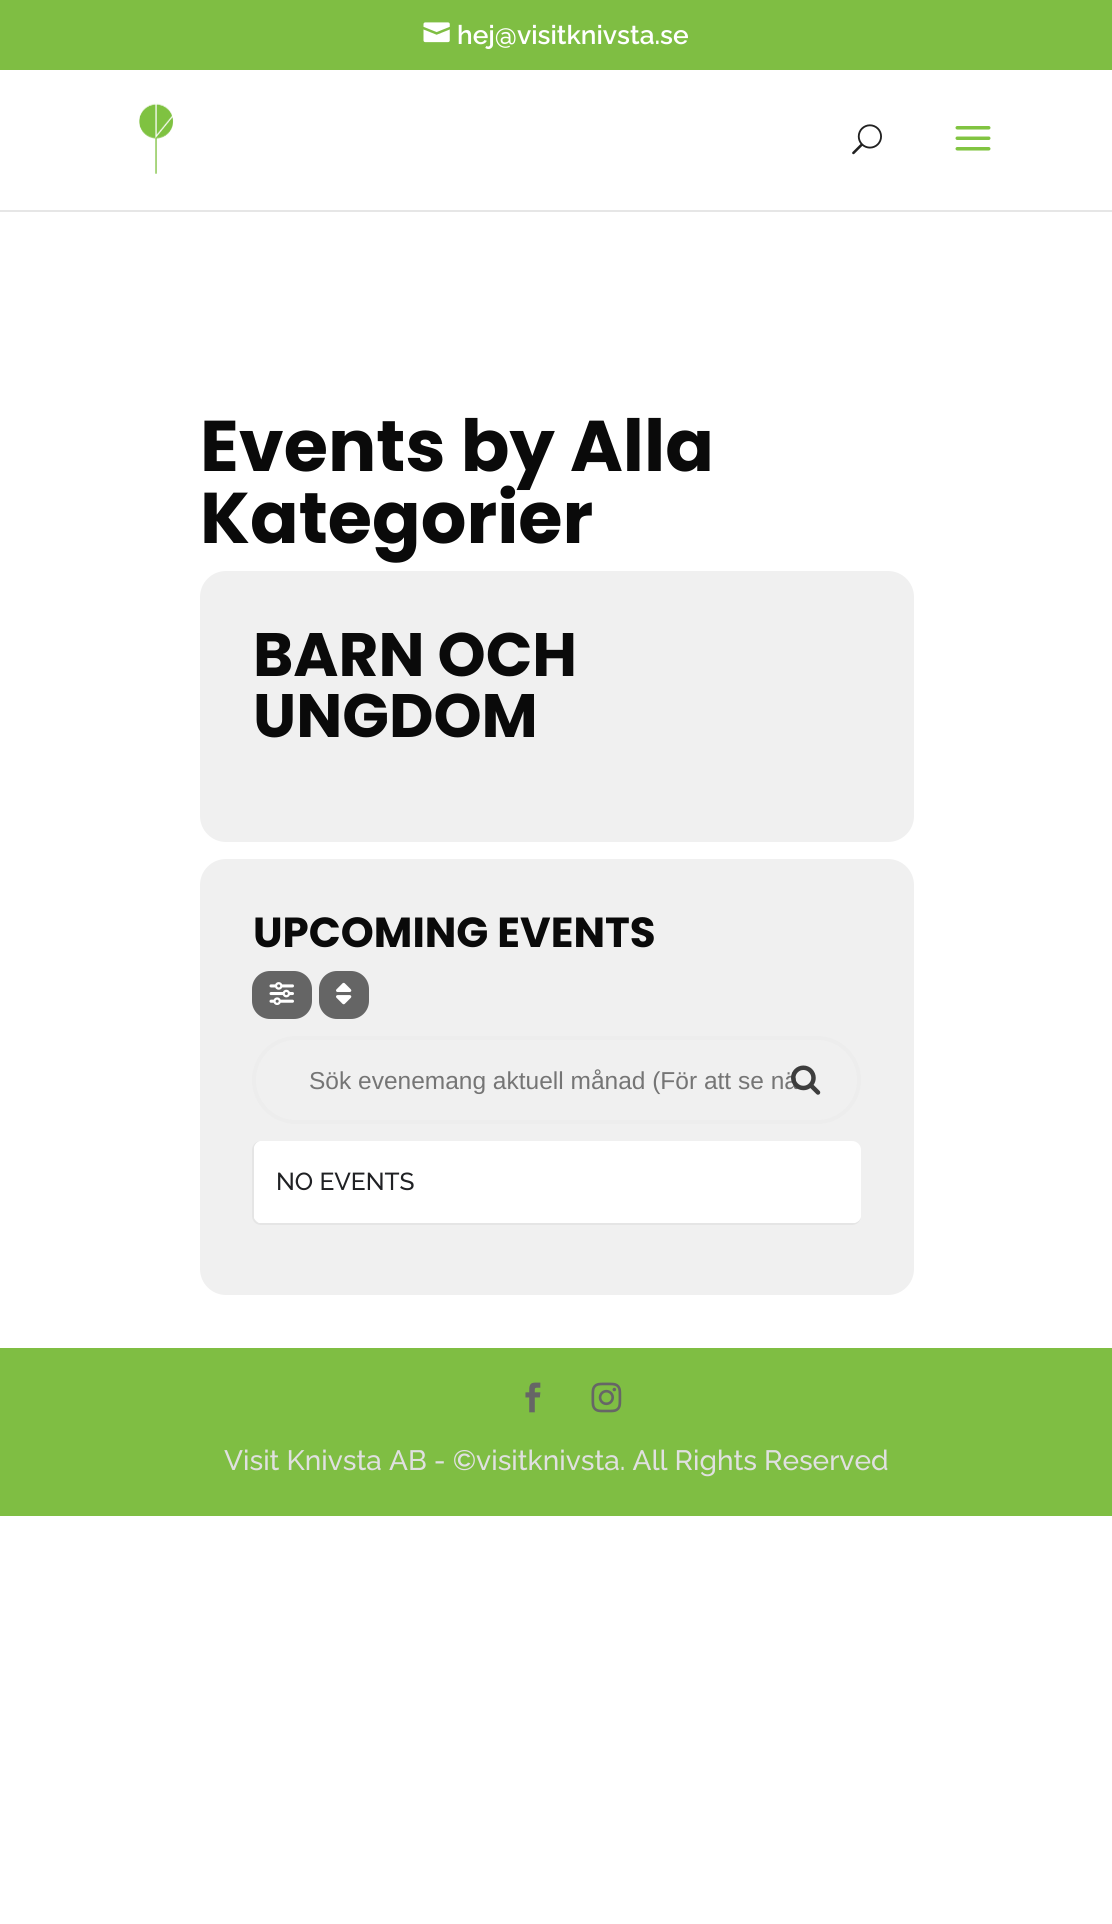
import math
import cairocffi as cairo

surface = cairo.ImageSurface(cairo.FORMAT_RGB24, 1112, 1924)
cr = cairo.Context(surface)
options = cairo.FontOptions()
options.set_hint_metrics(cairo.HINT_METRICS_OFF)
options.set_hint_style(cairo.HINT_STYLE_NONE)
cr.set_font_options(options)
cr.set_miter_limit(4)


def use_color(code):
    cr.set_source_rgb(*(v / 255 for v in bytes.fromhex(code[-6:])))


def round_rect(x, y, w, h, r):
    cr.new_sub_path()
    for i, (u, v) in enumerate([(x + w - r, y + h - r), (x + r, y + h - r), (x + r, y + r), (x + w - r, y + r)]):
        cr.arc(u, v, r, i * math.pi / 2, (i + 1) * math.pi / 2)
    cr.close_path()


def picture(path, x, y, w, h):
    cr.save()
    cr.set_source_surface(cairo.ImageSurface.create_from_png(path), x, y)
    cr.rectangle(x, y, w, h)
    cr.fill()
    cr.restore()


use_color("#ffffff")
cr.paint()
use_color("#7fbe43")
cr.rectangle(0, 0, 1112, 70)
cr.fill()
picture("img1.png", 423, 22, 27, 21)
cr.select_font_face("Raleway SemiBold")
cr.set_font_size(26.25)
use_color("#ffffff")
cr.move_to(457, 44)
cr.show_text("hej@visitknivsta.se")
use_color("#e6e6e6")
cr.rectangle(0, 210, 1112, 2)
cr.fill()
picture("img2.png", 139, 103, 35, 71)
picture("img3.png", 852, 124, 30, 31)
picture("img4.png", 955, 126, 36, 25)
cr.select_font_face("Poppins", cairo.FONT_SLANT_NORMAL, cairo.FONT_WEIGHT_BOLD)
cr.set_font_size(71.75)
use_color("#0a0a0a")
cr.move_to(200, 471)
cr.show_text("Events by Alla")
cr.move_to(200, 543)
cr.show_text("Kategorier")
use_color("#f0f0f0")
round_rect(200, 571, 714, 271, 26)
cr.fill()
cr.set_font_size(61.25)
use_color("#0a0a0a")
cr.move_to(253, 676)
cr.show_text("BARN OCH")
cr.move_to(253, 737)
cr.show_text("UNGDOM")
use_color("#f0f0f0")
round_rect(200, 859, 714, 436, 26)
cr.fill()
cr.set_font_size(42)
use_color("#0a0a0a")
cr.move_to(253, 947)
cr.show_text("UPCOMING EVENTS")
use_color("#656565")
round_rect(252, 971, 60, 48, 18)
cr.fill()
picture("img5.png", 269, 982, 25, 23)
round_rect(319, 971, 50, 48, 18)
cr.fill()
picture("img6.png", 336, 982, 16, 23)
round_rect(254, 1038, 605, 84, 42)
use_color("#ededed")
cr.set_line_width(4)
cr.stroke()
cr.select_font_face("Liberation Sans")
cr.set_font_size(24.5)
use_color("#757575")
cr.move_to(309, 1089)
cr.show_text("Sök evenemang aktuell månad (För att se nä")
picture("img7.png", 791, 1065, 30, 30)
use_color("#e5e5e5")
cr.set_fill_rule(cairo.FILL_RULE_EVEN_ODD)
cr.new_path()
cr.move_to(261, 1141)
cr.line_to(852, 1141)
cr.curve_to(857, 1141, 861, 1145, 861, 1150)
cr.line_to(861, 1216)
cr.curve_to(861, 1221, 857, 1225, 852, 1225)
cr.line_to(261, 1225)
cr.curve_to(256, 1225, 252, 1221, 252, 1216)
cr.line_to(252, 1150)
cr.curve_to(252, 1145, 256, 1141, 261, 1141)
cr.close_path()
cr.move_to(261, 1141)
cr.line_to(852, 1141)
cr.curve_to(857, 1141, 861, 1145, 861, 1150)
cr.line_to(861, 1216)
cr.curve_to(861, 1220, 857, 1223, 852, 1223)
cr.line_to(261, 1223)
cr.curve_to(257, 1223, 254, 1220, 254, 1216)
cr.line_to(254, 1150)
cr.curve_to(254, 1145, 257, 1141, 261, 1141)
cr.close_path()
cr.fill()
use_color("#ffffff")
cr.set_fill_rule(cairo.FILL_RULE_WINDING)
cr.new_path()
cr.move_to(261, 1141)
cr.line_to(260, 1141)
cr.curve_to(257, 1142, 255, 1144, 254, 1147)
cr.line_to(254, 1218)
cr.curve_to(255, 1220, 257, 1222, 259, 1223)
cr.line_to(855, 1223)
cr.curve_to(858, 1222, 860, 1220, 861, 1217)
cr.line_to(861, 1150)
cr.curve_to(861, 1145, 857, 1141, 852, 1141)
cr.close_path()
cr.fill()
cr.select_font_face("Raleway Medium")
use_color("#202124")
cr.move_to(276, 1190)
cr.show_text("NO EVENTS")
use_color("#7fbe43")
cr.rectangle(0, 1348, 1112, 168)
cr.fill()
picture("img8.png", 525, 1382, 16, 31)
picture("img9.png", 591, 1382, 31, 31)
cr.set_font_size(28)
use_color("#e0e0e0")
cr.move_to(224, 1470)
cr.show_text("Visit Knivsta AB - ©visitknivsta. All Rights Reserved")
surface.write_to_png("result.png")
